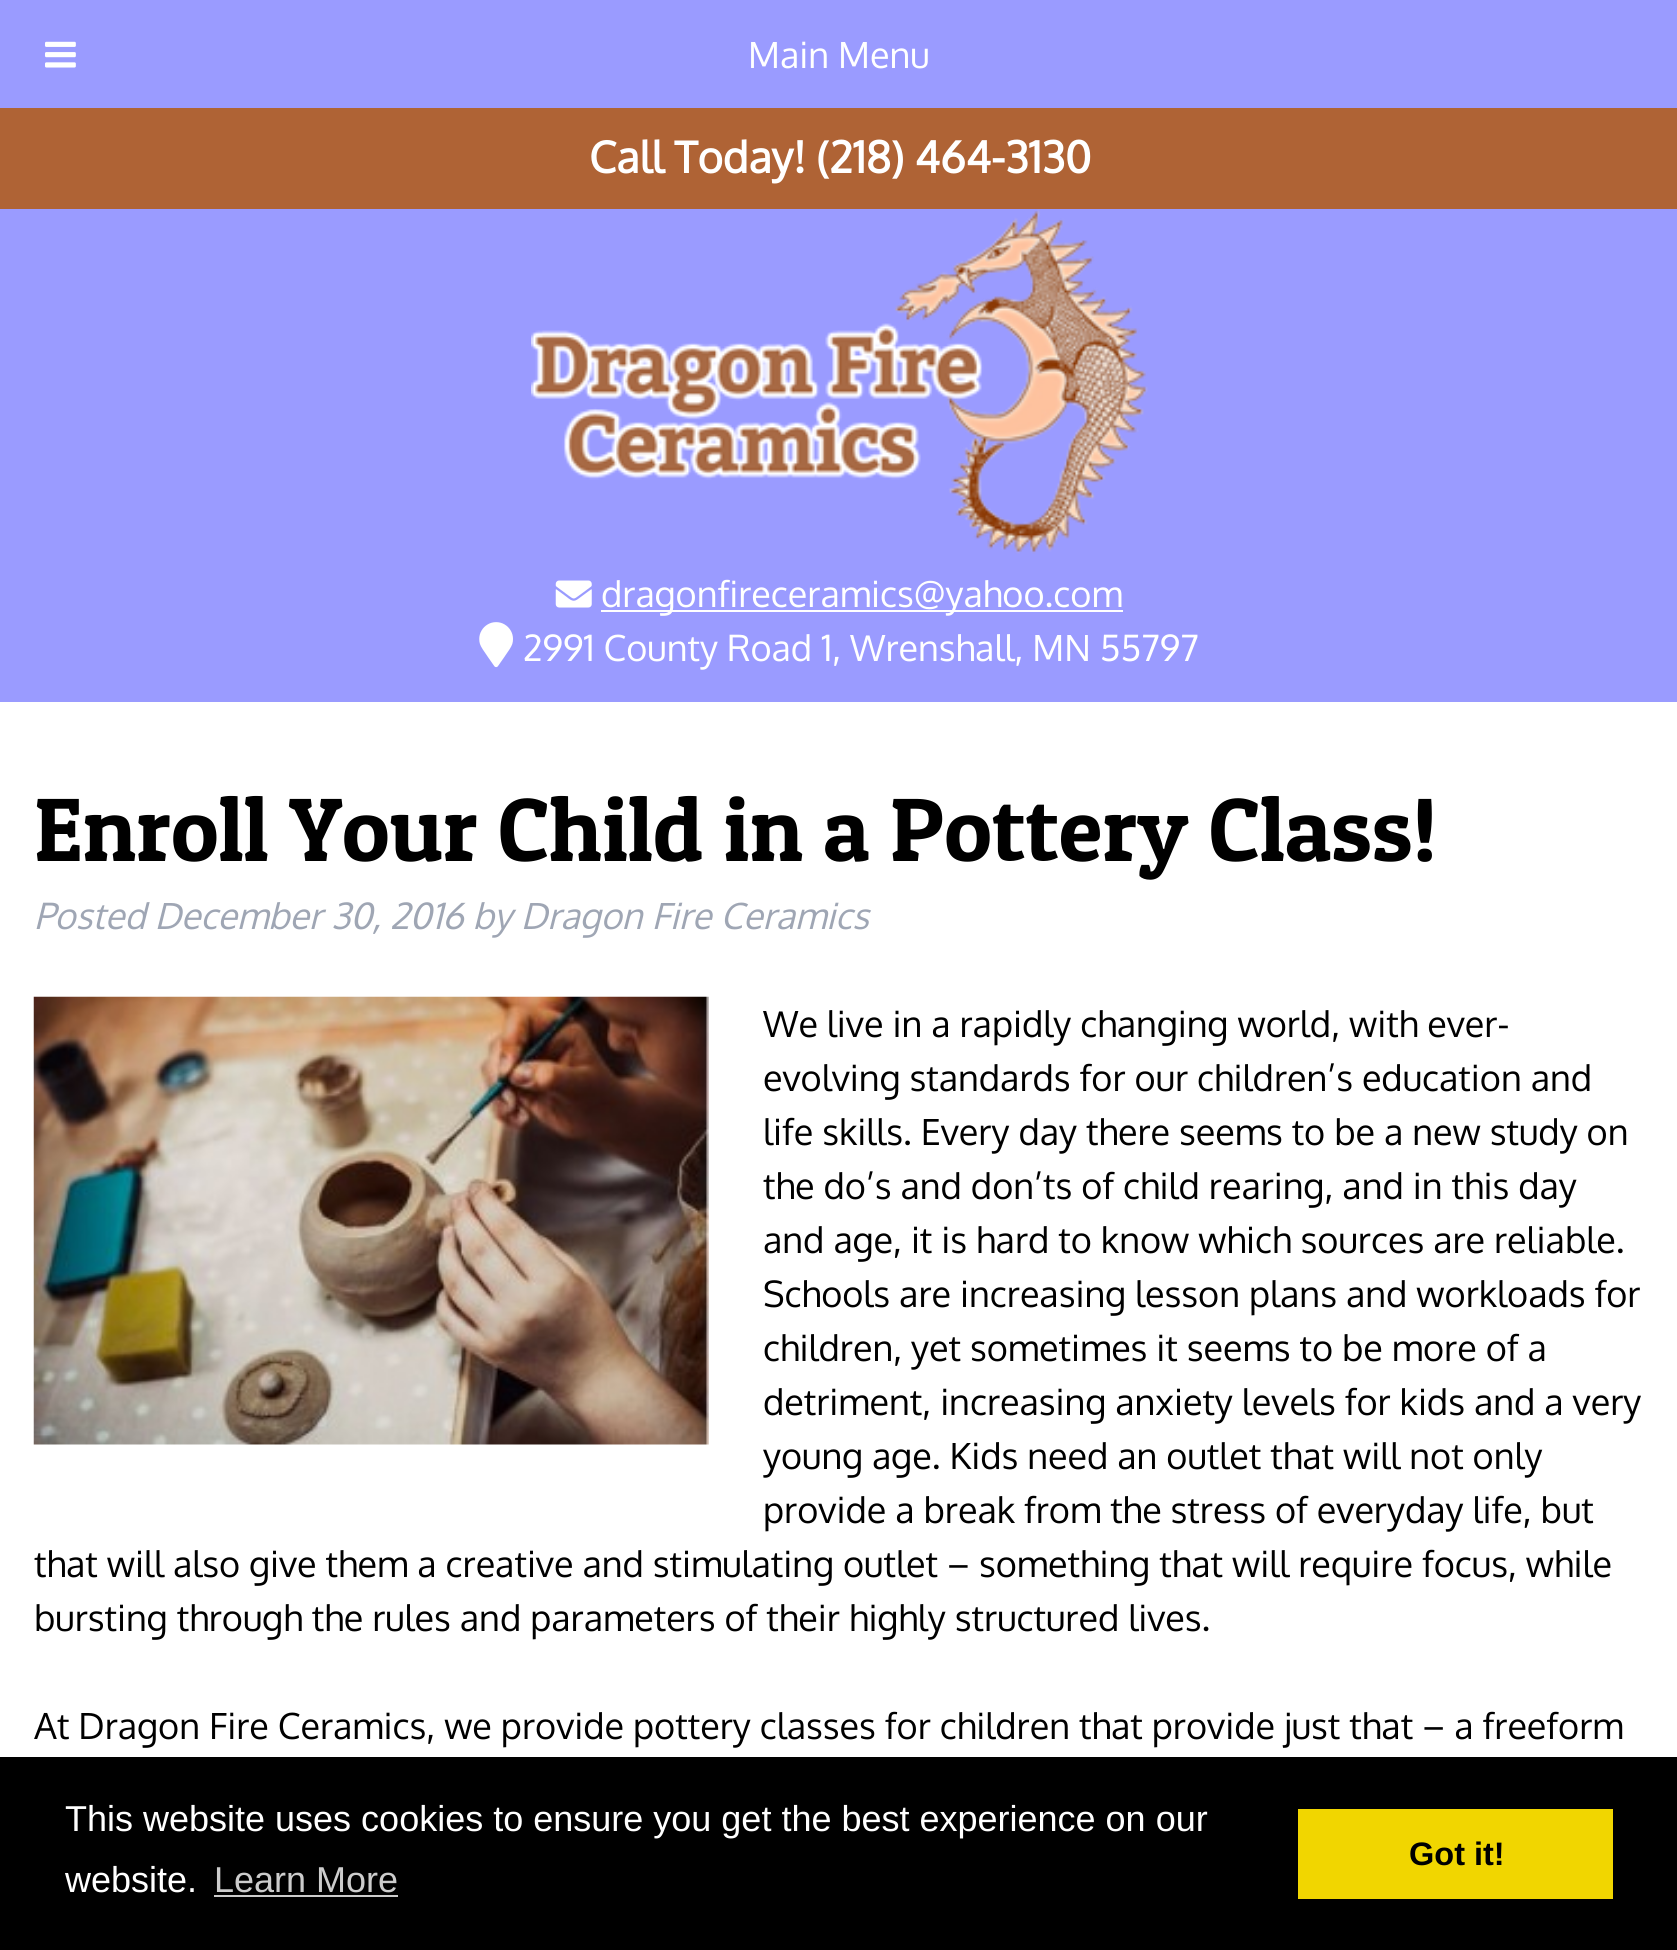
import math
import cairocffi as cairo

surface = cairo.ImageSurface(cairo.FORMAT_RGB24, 1677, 1950)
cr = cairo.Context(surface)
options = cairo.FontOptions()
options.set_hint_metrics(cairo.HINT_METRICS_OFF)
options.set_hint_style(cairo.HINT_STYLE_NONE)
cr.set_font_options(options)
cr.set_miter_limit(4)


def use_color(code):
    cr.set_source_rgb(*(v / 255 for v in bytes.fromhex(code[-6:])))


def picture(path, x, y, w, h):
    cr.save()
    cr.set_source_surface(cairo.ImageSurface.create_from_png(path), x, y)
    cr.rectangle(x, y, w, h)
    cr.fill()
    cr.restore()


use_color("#ffffff")
cr.paint()
use_color("#9a9bff")
cr.rectangle(0, 0, 1677, 108)
cr.fill()
picture("img1.png", 45, 41, 31, 27)
cr.select_font_face("Oxygen")
cr.set_font_size(36)
use_color("#ffffff")
cr.move_to(748, 68)
cr.show_text("Main Menu")
use_color("#af6335")
cr.rectangle(0, 108, 1677, 101)
cr.fill()
cr.select_font_face("Oxygen", cairo.FONT_SLANT_NORMAL, cairo.FONT_WEIGHT_BOLD)
cr.set_font_size(43.25)
use_color("#ffffff")
cr.move_to(589, 173)
cr.show_text("Call Today! (218) 464-3130")
use_color("#9a9bff")
cr.rectangle(0, 209, 1677, 493)
cr.fill()
picture("img2.png", 531, 209, 617, 345)
picture("img3.png", 555, 580, 37, 28)
use_color("#ffffff")
cr.rectangle(601, 610, 522, 2)
cr.fill()
cr.select_font_face("Oxygen")
cr.set_font_size(36)
cr.move_to(601, 607)
cr.show_text("dragonfireceramics@yahoo.com")
picture("img4.png", 479, 622, 34, 46)
cr.move_to(523, 661)
cr.show_text("2991 County Road 1, Wrenshall, MN 55797")
cr.select_font_face("Patua One")
cr.set_font_size(90)
use_color("#000000")
cr.move_to(34, 861)
cr.show_text("Enroll Your Child in a Pottery Class!")
cr.select_font_face("Oxygen", cairo.FONT_SLANT_ITALIC)
cr.set_font_size(36)
use_color("#9fa6b4")
cr.move_to(34, 929)
cr.show_text("Posted December 30, 2016 by Dragon Fire Ceramics")
picture("img5.png", 33, 996, 676, 449)
cr.select_font_face("Oxygen")
use_color("#000000")
cr.move_to(763, 1037)
cr.show_text("We live in a rapidly changing world, with ever-")
cr.move_to(763, 1091)
cr.show_text("evolving standards for our children’s education and")
cr.move_to(763, 1145)
cr.show_text("life skills. Every day there seems to be a new study on")
cr.move_to(763, 1199)
cr.show_text("the do’s and don’ts of child rearing, and in this day")
cr.move_to(763, 1253)
cr.show_text("and age, it is hard to know which sources are reliable.")
cr.move_to(763, 1307)
cr.show_text("Schools are increasing lesson plans and workloads for")
cr.move_to(763, 1361)
cr.show_text("children, yet sometimes it seems to be more of a")
cr.move_to(763, 1415)
cr.show_text("detriment, increasing anxiety levels for kids and a very")
cr.move_to(763, 1469)
cr.show_text("young age. Kids need an outlet that will not only")
cr.move_to(763, 1523)
cr.show_text("provide a break from the stress of everyday life, but")
cr.move_to(34, 1577)
cr.show_text("that will also give them a creative and stimulating outlet – something that will require focus, while")
cr.move_to(34, 1631)
cr.show_text("bursting through the rules and parameters of their highly structured lives.")
cr.move_to(34, 1739)
cr.show_text("At Dragon Fire Ceramics, we provide pottery classes for children that provide just that – a freeform")
cr.rectangle(0, 1757, 1677, 193)
cr.fill()
cr.select_font_face("Liberation Sans")
use_color("#ffffff")
cr.move_to(65, 1831)
cr.show_text("This website uses cookies to ensure you get the best experience on our")
cr.move_to(65, 1892)
cr.show_text("website.")
use_color("#cccccc")
cr.move_to(214, 1892)
cr.show_text("Learn More")
cr.rectangle(214, 1895, 184, 2)
cr.fill()
use_color("#f1d600")
cr.rectangle(1298, 1809, 315, 90)
cr.fill()
cr.select_font_face("Liberation Sans", cairo.FONT_SLANT_NORMAL, cairo.FONT_WEIGHT_BOLD)
cr.set_font_size(32.5)
use_color("#000000")
cr.move_to(1409, 1865)
cr.show_text("Got it!")
surface.write_to_png("result.png")
